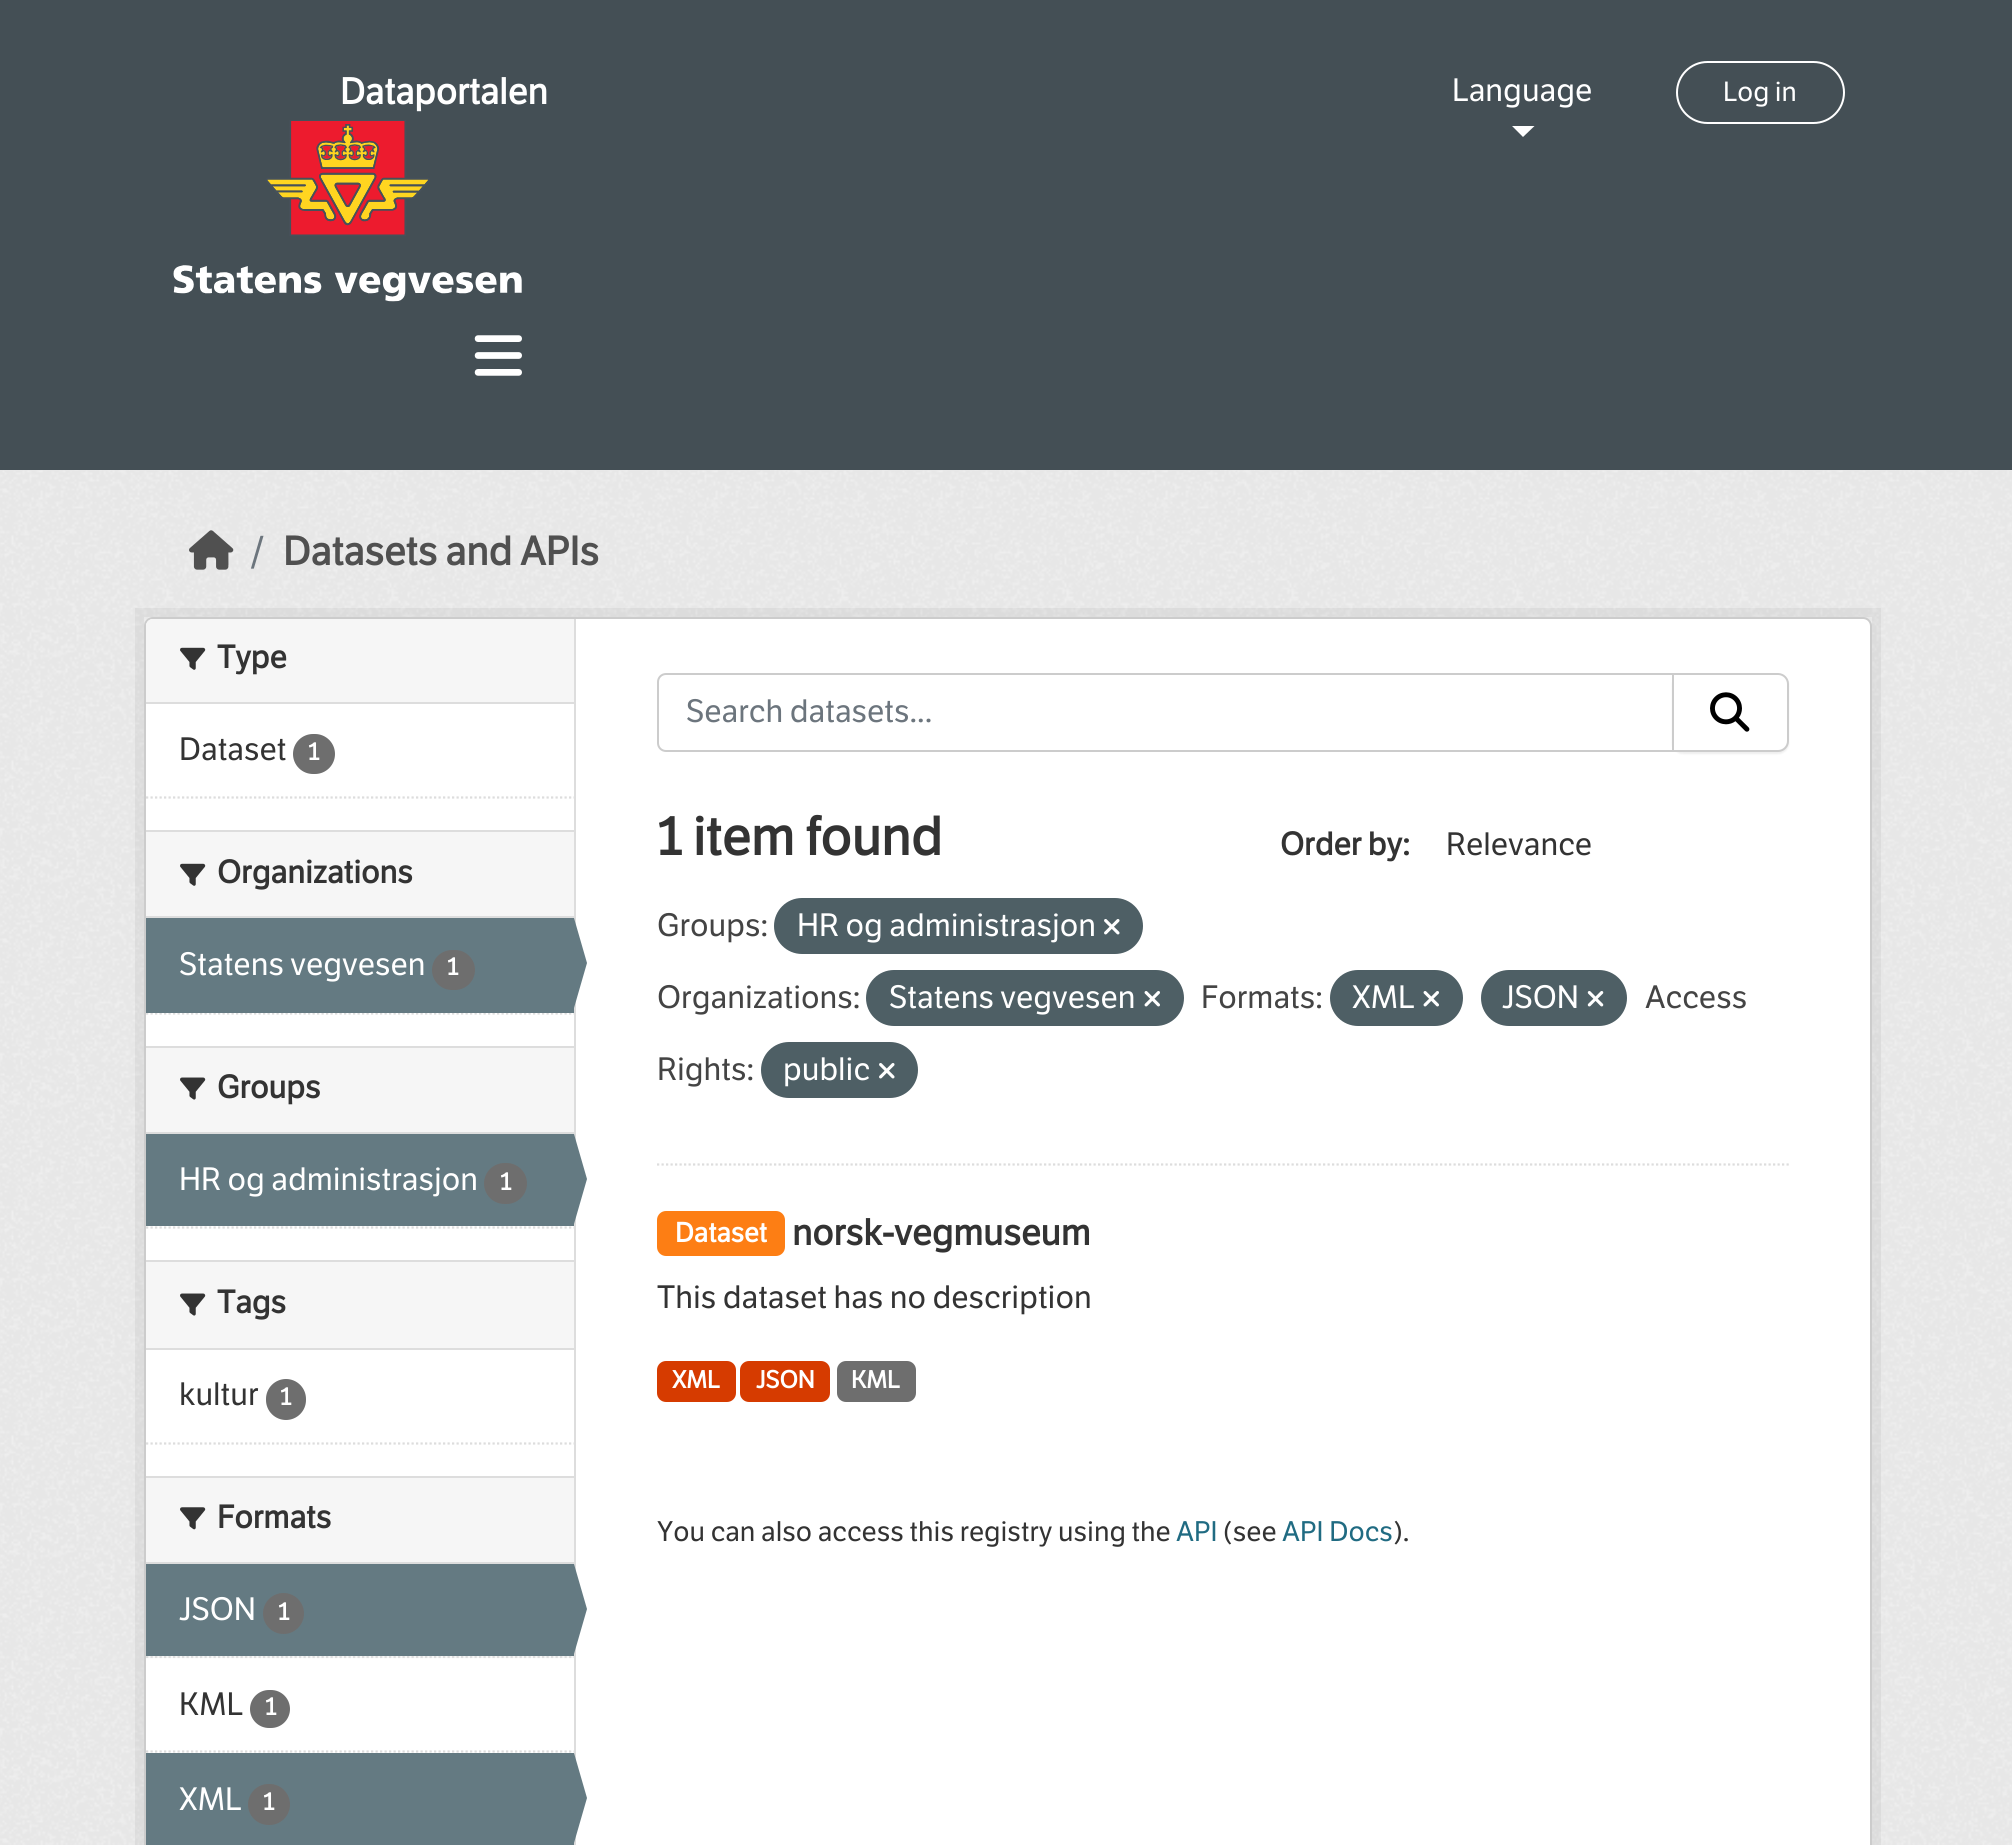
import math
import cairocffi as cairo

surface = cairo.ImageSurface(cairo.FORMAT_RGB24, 2012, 1845)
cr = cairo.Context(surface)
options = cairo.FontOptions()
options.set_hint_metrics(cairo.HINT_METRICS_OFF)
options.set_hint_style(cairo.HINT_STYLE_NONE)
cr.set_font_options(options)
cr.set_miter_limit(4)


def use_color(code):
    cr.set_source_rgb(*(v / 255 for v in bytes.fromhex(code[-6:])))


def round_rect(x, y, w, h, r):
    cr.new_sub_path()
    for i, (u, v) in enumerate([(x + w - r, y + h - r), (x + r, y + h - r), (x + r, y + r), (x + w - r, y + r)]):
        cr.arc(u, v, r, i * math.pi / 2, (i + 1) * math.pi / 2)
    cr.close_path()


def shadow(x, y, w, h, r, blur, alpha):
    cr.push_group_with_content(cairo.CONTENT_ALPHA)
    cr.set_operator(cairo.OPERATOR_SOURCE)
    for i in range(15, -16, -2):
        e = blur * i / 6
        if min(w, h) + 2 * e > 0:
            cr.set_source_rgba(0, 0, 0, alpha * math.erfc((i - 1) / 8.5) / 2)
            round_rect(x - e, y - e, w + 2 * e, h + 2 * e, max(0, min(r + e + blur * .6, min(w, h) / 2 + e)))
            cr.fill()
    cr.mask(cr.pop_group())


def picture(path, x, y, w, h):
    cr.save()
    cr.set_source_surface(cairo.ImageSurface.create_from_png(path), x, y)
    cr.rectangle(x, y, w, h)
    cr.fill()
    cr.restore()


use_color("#444f55")
cr.paint()
cr.select_font_face("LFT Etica", cairo.FONT_SLANT_NORMAL, cairo.FONT_WEIGHT_BOLD)
cr.set_font_size(36)
use_color("#ffffff")
cr.move_to(340, 104)
cr.show_text("Dataportalen")
picture("img1.png", 173, 120, 349, 182)
picture("img2.png", 474, 335, 48, 41)
cr.select_font_face("LFT Etica")
cr.set_font_size(31.5)
cr.move_to(1452, 101)
cr.show_text("Language")
cr.new_path()
cr.move_to(1512, 126)
cr.line_to(1534.5, 126)
cr.line_to(1523, 137)
cr.close_path()
cr.fill()
round_rect(1677, 62, 167, 61, 30.5)
cr.stroke()
cr.set_font_size(27)
cr.move_to(1723, 101)
cr.show_text("Log in")
use_color("#eeeeee")
cr.rectangle(0, 470, 2012, 1375)
cr.fill()
picture("img3.png", 0, 470, 2012, 1375)
picture("img4.png", 189, 530, 45, 40)
cr.set_font_size(39.5)
use_color("#6c757d")
cr.move_to(250, 565)
cr.show_text("/")
cr.select_font_face("LFT Etica", cairo.FONT_SLANT_NORMAL, cairo.FONT_WEIGHT_BOLD)
use_color("#505050")
cr.move_to(283, 565)
cr.show_text("Datasets and APIs")
cr.rectangle(139.5, 612.5, 1737, 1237)
cr.set_source_rgba(0, 0, 0, 0.05)
cr.set_line_width(9)
cr.stroke()
use_color("#ffffff")
round_rect(145, 618, 1726, 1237, 8)
cr.fill_preserve()
use_color("#cccccc")
cr.set_line_width(2)
cr.stroke()
use_color("#f6f6f6")
cr.new_path()
cr.move_to(153, 619)
cr.line_to(574, 619)
cr.line_to(574, 704)
cr.line_to(146, 704)
cr.line_to(146, 626)
cr.curve_to(146, 622, 149, 619, 153, 619)
cr.close_path()
cr.fill()
use_color("#dddddd")
cr.rectangle(146, 702, 428, 2)
cr.fill()
picture("img5.png", 180, 647, 26, 23)
cr.set_font_size(31.5)
use_color("#333333")
cr.move_to(217, 668)
cr.show_text("Type")
cr.select_font_face("LFT Etica")
cr.move_to(179, 760)
cr.show_text("Dataset")
use_color("#6e6e6e")
round_rect(293, 734, 42, 40, 20)
cr.fill()
cr.select_font_face("LFT Etica", cairo.FONT_SLANT_NORMAL, cairo.FONT_WEIGHT_BOLD)
cr.set_font_size(24)
use_color("#ffffff")
cr.move_to(308, 760)
cr.show_text("1")
cr.new_path()
cr.move_to(146, 797.5)
cr.line_to(574, 797.5)
use_color("#dddddd")
cr.set_line_width(2.2)
cr.set_dash([2.25, 2.25])
cr.stroke()
use_color("#f6f6f6")
cr.rectangle(146, 832, 428, 84)
cr.fill()
use_color("#dddddd")
cr.rectangle(146, 830, 428, 2)
cr.fill()
cr.rectangle(146, 916, 428, 2)
cr.fill()
picture("img5.png", 180, 863, 26, 23)
cr.set_font_size(31.5)
use_color("#333333")
cr.move_to(217, 883)
cr.show_text("Organizations")
cr.new_path()
cr.move_to(146, 1013.5)
cr.line_to(574, 1013.5)
use_color("#dddddd")
cr.stroke()
use_color("#647a82")
cr.rectangle(146, 918, 428, 95)
cr.fill()
cr.select_font_face("LFT Etica")
use_color("#ffffff")
cr.move_to(179, 975)
cr.show_text("Statens vegvesen")
use_color("#6e6e6e")
round_rect(432, 950, 43, 40, 20)
cr.fill()
cr.select_font_face("LFT Etica", cairo.FONT_SLANT_NORMAL, cairo.FONT_WEIGHT_BOLD)
cr.set_font_size(24)
use_color("#ffffff")
cr.move_to(447, 975)
cr.show_text("1")
use_color("#dddddd")
cr.rectangle(574, 619, 2, 1226)
cr.fill()
use_color("#647a82")
cr.new_path()
cr.move_to(574, 1008)
cr.line_to(574, 918)
cr.line_to(587, 963)
cr.close_path()
cr.fill()
use_color("#f6f6f6")
cr.rectangle(146, 1048, 428, 84)
cr.fill()
use_color("#dddddd")
cr.rectangle(146, 1046, 428, 2)
cr.fill()
cr.rectangle(146, 1132, 428, 2)
cr.fill()
picture("img6.png", 180, 1077, 26, 23)
cr.set_font_size(31.5)
use_color("#333333")
cr.move_to(217, 1098)
cr.show_text("Groups")
use_color("#647a82")
cr.rectangle(146, 1134, 428, 92)
cr.fill()
cr.select_font_face("LFT Etica")
use_color("#ffffff")
cr.move_to(179, 1190)
cr.show_text("HR og administrasjon")
use_color("#6e6e6e")
round_rect(484, 1163, 43, 41, 20.5)
cr.fill()
cr.select_font_face("LFT Etica", cairo.FONT_SLANT_NORMAL, cairo.FONT_WEIGHT_BOLD)
cr.set_font_size(24)
use_color("#ffffff")
cr.move_to(500, 1190)
cr.show_text("1")
use_color("#647a82")
cr.new_path()
cr.move_to(574, 1224)
cr.line_to(574, 1134)
cr.line_to(587, 1179)
cr.close_path()
cr.fill()
cr.new_path()
cr.move_to(146, 1227.5)
cr.line_to(574, 1227.5)
use_color("#dddddd")
cr.stroke()
use_color("#f6f6f6")
cr.rectangle(146, 1262, 428, 86)
cr.fill()
use_color("#dddddd")
cr.rectangle(146, 1260, 428, 2)
cr.fill()
cr.rectangle(146, 1348, 428, 2)
cr.fill()
picture("img6.png", 180, 1293, 26, 23)
cr.set_font_size(31.5)
use_color("#333333")
cr.move_to(217, 1313)
cr.show_text("Tags")
cr.select_font_face("LFT Etica")
cr.move_to(179, 1405)
cr.show_text("kultur")
use_color("#6e6e6e")
round_rect(266, 1379, 40, 41, 20)
cr.fill()
cr.select_font_face("LFT Etica", cairo.FONT_SLANT_NORMAL, cairo.FONT_WEIGHT_BOLD)
cr.set_font_size(24)
use_color("#ffffff")
cr.move_to(280, 1405)
cr.show_text("1")
cr.new_path()
cr.move_to(146, 1443.5)
cr.line_to(574, 1443.5)
use_color("#dddddd")
cr.stroke()
use_color("#f6f6f6")
cr.rectangle(146, 1478, 428, 84)
cr.fill()
use_color("#dddddd")
cr.rectangle(146, 1476, 428, 2)
cr.fill()
cr.rectangle(146, 1562, 428, 2)
cr.fill()
picture("img7.png", 180, 1507, 26, 23)
cr.set_font_size(31.5)
use_color("#333333")
cr.move_to(217, 1528)
cr.show_text("Formats")
use_color("#f6f6f6")
cr.rectangle(148, 1656, 426, 2)
cr.fill()
cr.new_path()
cr.move_to(146, 1657)
cr.line_to(574, 1657)
use_color("#dddddd")
cr.stroke()
use_color("#647a82")
cr.rectangle(146, 1564, 428, 92)
cr.fill()
cr.select_font_face("LFT Etica")
use_color("#ffffff")
cr.move_to(179, 1620)
cr.show_text("JSON")
use_color("#6e6e6e")
cr.new_path()
cr.arc(283.5, 1613.5, 20.5, 0, 2 * math.pi)
cr.fill()
cr.select_font_face("LFT Etica", cairo.FONT_SLANT_NORMAL, cairo.FONT_WEIGHT_BOLD)
cr.set_font_size(24)
use_color("#ffffff")
cr.move_to(278, 1620)
cr.show_text("1")
use_color("#647a82")
cr.new_path()
cr.move_to(574, 1654)
cr.line_to(574, 1564)
cr.line_to(587, 1609)
cr.close_path()
cr.fill()
cr.new_path()
cr.move_to(146, 1751.5)
cr.line_to(574, 1751.5)
use_color("#dddddd")
cr.stroke()
cr.select_font_face("LFT Etica")
cr.set_font_size(31.5)
use_color("#333333")
cr.move_to(179, 1715)
cr.show_text("KML")
use_color("#6e6e6e")
round_rect(250, 1690, 40, 38, 19)
cr.fill()
cr.select_font_face("LFT Etica", cairo.FONT_SLANT_NORMAL, cairo.FONT_WEIGHT_BOLD)
cr.set_font_size(24)
use_color("#ffffff")
cr.move_to(265, 1715)
cr.show_text("1")
use_color("#647a82")
cr.rectangle(146, 1753, 428, 92)
cr.fill()
cr.select_font_face("LFT Etica")
cr.set_font_size(31.5)
use_color("#ffffff")
cr.move_to(179, 1810)
cr.show_text("XML")
use_color("#6e6e6e")
round_rect(248, 1784, 42, 41, 20.5)
cr.fill()
cr.select_font_face("LFT Etica", cairo.FONT_SLANT_NORMAL, cairo.FONT_WEIGHT_BOLD)
cr.set_font_size(24)
use_color("#ffffff")
cr.move_to(263, 1810)
cr.show_text("1")
use_color("#647a82")
cr.new_path()
cr.move_to(574, 1843)
cr.line_to(574, 1753)
cr.line_to(587, 1798)
cr.close_path()
cr.fill()
cr.new_path()
cr.move_to(657, 1164.5)
cr.line_to(1789, 1164.5)
use_color("#dddddd")
cr.stroke()
cr.new_path()
cr.move_to(666, 674)
cr.line_to(1673, 674)
cr.line_to(1673, 751)
cr.line_to(666, 751)
cr.curve_to(661.5, 751, 658, 747.5, 658, 743)
cr.line_to(658, 682)
cr.curve_to(658, 677.5, 661.5, 674, 666, 674)
cr.close_path()
use_color("#cccccc")
cr.set_line_width(2)
cr.set_dash([])
cr.stroke()
cr.select_font_face("LFT Etica")
cr.set_font_size(31.5)
use_color("#6c757d")
cr.move_to(686, 722)
cr.show_text("Search datasets...")
use_color("#000000")
shadow(1672, 675, 117, 79, 11, 1, 0.07)
use_color("#ffffff")
cr.new_path()
cr.move_to(1673, 674)
cr.line_to(1778, 674)
cr.curve_to(1783.5, 674, 1788, 678.5, 1788, 684)
cr.line_to(1788, 741)
cr.curve_to(1788, 746.5, 1783.5, 751, 1778, 751)
cr.line_to(1673, 751)
cr.close_path()
cr.fill_preserve()
use_color("#cccccc")
cr.stroke()
picture("img8.png", 1710, 692, 40, 40)
cr.select_font_face("LFT Etica", cairo.FONT_SLANT_NORMAL, cairo.FONT_WEIGHT_BOLD)
cr.set_font_size(52.75)
use_color("#333333")
cr.move_to(657, 855)
cr.show_text("1 item found")
cr.set_font_size(31.5)
cr.move_to(1280, 855)
cr.show_text("Order by:")
cr.select_font_face("LFT Etica")
cr.move_to(1446, 855)
cr.show_text("Relevance")
use_color("#444444")
cr.move_to(657, 936)
cr.show_text("Groups:")
use_color("#4e5f65")
round_rect(774, 898, 369, 56, 28)
cr.fill()
use_color("#ffffff")
cr.move_to(797, 936)
cr.show_text("HR og administrasjon")
picture("img9.png", 1104, 919, 16, 16)
use_color("#444444")
cr.move_to(657, 1008)
cr.show_text("Organizations:")
use_color("#4e5f65")
round_rect(866, 970, 318, 56, 28)
cr.fill()
use_color("#ffffff")
cr.move_to(889, 1008)
cr.show_text("Statens vegvesen")
picture("img10.png", 1144, 991, 16, 16)
use_color("#444444")
cr.move_to(1201, 1008)
cr.show_text("Formats:")
use_color("#4e5f65")
round_rect(1330, 970, 133, 56, 28)
cr.fill()
use_color("#ffffff")
cr.move_to(1352, 1008)
cr.show_text("XML")
picture("img10.png", 1423, 991, 16, 16)
use_color("#4e5f65")
round_rect(1481, 970, 146, 56, 28)
cr.fill()
use_color("#ffffff")
cr.move_to(1502, 1008)
cr.show_text("JSON")
picture("img11.png", 1587, 991, 17, 16)
use_color("#444444")
cr.move_to(1645, 1008)
cr.show_text("Access")
cr.move_to(657, 1080)
cr.show_text("Rights:")
use_color("#4e5f65")
round_rect(761, 1042, 157, 56, 28)
cr.fill()
use_color("#ffffff")
cr.move_to(783, 1080)
cr.show_text("public")
picture("img9.png", 879, 1063, 16, 16)
use_color("#fd7e14")
round_rect(657, 1211, 128, 45, 9)
cr.fill()
cr.select_font_face("LFT Etica", cairo.FONT_SLANT_NORMAL, cairo.FONT_WEIGHT_BOLD)
cr.set_font_size(27)
use_color("#ffffff")
cr.move_to(675, 1242)
cr.show_text("Dataset")
cr.set_font_size(36)
use_color("#333333")
cr.move_to(792, 1245)
cr.show_text("norsk-vegmuseum")
cr.select_font_face("LFT Etica")
cr.set_font_size(31.5)
cr.move_to(657, 1308)
cr.show_text("This dataset has no description")
use_color("#d63b00")
round_rect(657, 1361, 79, 41, 9)
cr.fill()
cr.select_font_face("LFT Etica", cairo.FONT_SLANT_NORMAL, cairo.FONT_WEIGHT_BOLD)
cr.set_font_size(24)
use_color("#ffffff")
cr.move_to(672, 1388)
cr.show_text("XML")
use_color("#d63b00")
round_rect(740, 1361, 90, 41, 9)
cr.fill()
use_color("#ffffff")
cr.move_to(756, 1388)
cr.show_text("JSON")
use_color("#6e6e6e")
round_rect(837, 1361, 79, 41, 9)
cr.fill()
use_color("#ffffff")
cr.move_to(851, 1388)
cr.show_text("KML")
cr.select_font_face("LFT Etica")
cr.set_font_size(27.6)
use_color("#333333")
cr.move_to(657, 1541)
cr.show_text("You can also access this registry using the")
use_color("#206b82")
cr.move_to(1176, 1541)
cr.show_text("API")
use_color("#333333")
cr.move_to(1223, 1541)
cr.show_text("(see")
use_color("#206b82")
cr.move_to(1282, 1541)
cr.show_text("API Docs")
use_color("#333333")
cr.move_to(1393, 1541)
cr.show_text(").")
surface.write_to_png("result.png")
